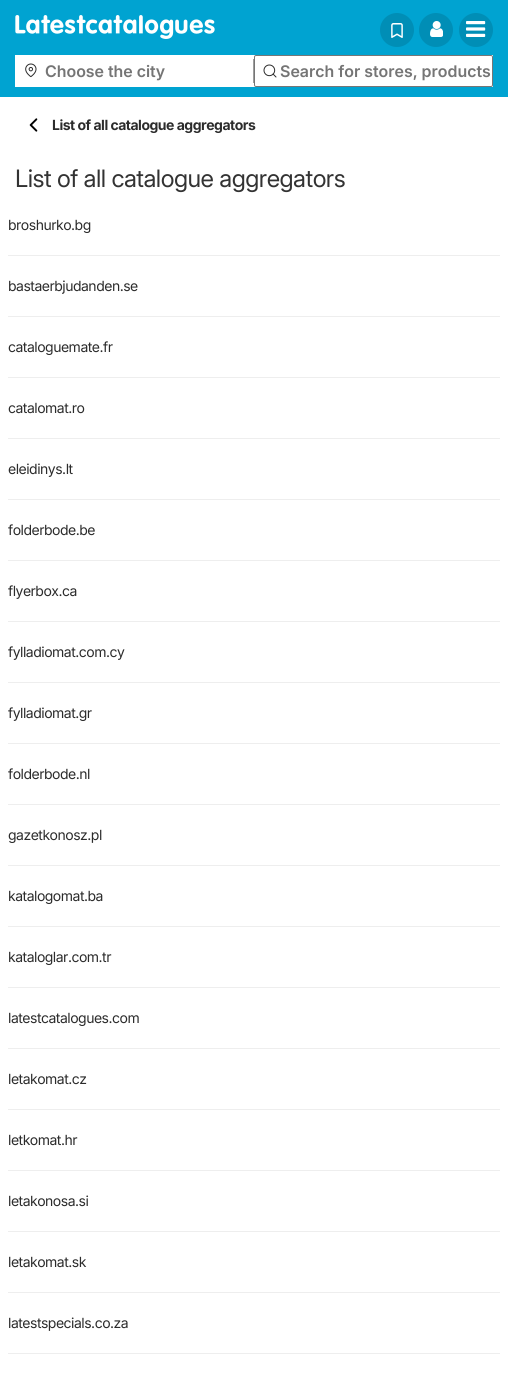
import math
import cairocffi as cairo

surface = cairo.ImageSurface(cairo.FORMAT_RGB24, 508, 1385)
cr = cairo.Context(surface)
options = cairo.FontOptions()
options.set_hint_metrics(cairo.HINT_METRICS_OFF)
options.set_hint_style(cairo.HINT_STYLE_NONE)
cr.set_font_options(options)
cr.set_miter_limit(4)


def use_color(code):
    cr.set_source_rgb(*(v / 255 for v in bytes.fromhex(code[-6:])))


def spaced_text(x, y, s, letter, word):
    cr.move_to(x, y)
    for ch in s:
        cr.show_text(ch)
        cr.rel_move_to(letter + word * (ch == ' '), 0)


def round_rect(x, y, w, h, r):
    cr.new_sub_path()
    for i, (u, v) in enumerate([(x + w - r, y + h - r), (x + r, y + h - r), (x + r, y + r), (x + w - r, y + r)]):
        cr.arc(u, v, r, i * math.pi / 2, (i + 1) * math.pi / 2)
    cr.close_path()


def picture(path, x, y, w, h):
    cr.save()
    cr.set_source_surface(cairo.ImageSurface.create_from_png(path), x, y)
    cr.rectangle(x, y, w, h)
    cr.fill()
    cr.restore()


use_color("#ffffff")
cr.paint()
use_color("#00a3d1")
cr.rectangle(0, 0, 508, 97)
cr.fill()
picture("img1.png", 15, 15, 200, 24)
use_color("#008eb6")
cr.arc(397, 30, 17, 0, 2 * math.pi)
cr.fill()
picture("img2.png", 391, 23, 12, 15)
cr.arc(436, 30, 17, 0, 2 * math.pi)
cr.fill()
picture("img3.png", 430, 21, 13, 16)
cr.arc(476, 30, 17, 0, 2 * math.pi)
cr.fill()
picture("img4.png", 466, 21, 20, 16)
use_color("#ffffff")
cr.rectangle(15, 55, 478, 32)
cr.fill()
picture("img5.png", 25, 63, 12, 15)
cr.select_font_face("Inter SemiBold")
cr.set_font_size(16)
use_color("#757575")
cr.move_to(45, 77)
cr.show_text("Choose the city")
use_color("#9d9d9d")
cr.rectangle(253, 59, 1, 24)
cr.fill()
round_rect(254.5, 55.5, 238, 31, 1.5)
use_color("#767676")
cr.set_line_width(1)
cr.stroke()
picture("img6.png", 263, 64, 14, 14)
use_color("#757575")
cr.move_to(280, 77)
cr.show_text("Search for stores, products")
picture("img7.png", 29, 118, 9, 14)
cr.select_font_face("Inter", cairo.FONT_SLANT_NORMAL, cairo.FONT_WEIGHT_BOLD)
cr.set_font_size(14)
use_color("#2c2c2c")
spaced_text(52, 130, "List of all catalogue aggregators", -0.5, 0)
cr.select_font_face("Inter")
cr.set_font_size(24)
use_color("#333333")
spaced_text(15, 187, "List of all catalogue aggregators", -0.5, 0)
cr.select_font_face("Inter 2")
cr.set_font_size(14)
use_color("#2c2c2c")
spaced_text(8, 230, "broshurko.bg", -0.5, 0)
use_color("#eeeeee")
cr.rectangle(8, 255, 492, 1)
cr.fill()
use_color("#2c2c2c")
spaced_text(8, 291, "bastaerbjudanden.se", -0.5, 0)
use_color("#eeeeee")
cr.rectangle(8, 316, 492, 1)
cr.fill()
use_color("#2c2c2c")
spaced_text(8, 352, "cataloguemate.fr", -0.5, 0)
use_color("#eeeeee")
cr.rectangle(8, 377, 492, 1)
cr.fill()
use_color("#2c2c2c")
spaced_text(8, 413, "catalomat.ro", -0.5, 0)
use_color("#eeeeee")
cr.rectangle(8, 438, 492, 1)
cr.fill()
use_color("#2c2c2c")
spaced_text(8, 474, "eleidinys.lt", -0.5, 0)
use_color("#eeeeee")
cr.rectangle(8, 499, 492, 1)
cr.fill()
use_color("#2c2c2c")
spaced_text(8, 535, "folderbode.be", -0.5, 0)
use_color("#eeeeee")
cr.rectangle(8, 560, 492, 1)
cr.fill()
use_color("#2c2c2c")
spaced_text(8, 596, "flyerbox.ca", -0.5, 0)
use_color("#eeeeee")
cr.rectangle(8, 621, 492, 1)
cr.fill()
use_color("#2c2c2c")
spaced_text(8, 657, "fylladiomat.com.cy", -0.5, 0)
use_color("#eeeeee")
cr.rectangle(8, 682, 492, 1)
cr.fill()
use_color("#2c2c2c")
spaced_text(8, 718, "fylladiomat.gr", -0.5, 0)
use_color("#eeeeee")
cr.rectangle(8, 743, 492, 1)
cr.fill()
use_color("#2c2c2c")
spaced_text(8, 779, "folderbode.nl", -0.5, 0)
use_color("#eeeeee")
cr.rectangle(8, 804, 492, 1)
cr.fill()
use_color("#2c2c2c")
spaced_text(8, 840, "gazetkonosz.pl", -0.5, 0)
use_color("#eeeeee")
cr.rectangle(8, 865, 492, 1)
cr.fill()
use_color("#2c2c2c")
spaced_text(8, 901, "katalogomat.ba", -0.5, 0)
use_color("#eeeeee")
cr.rectangle(8, 926, 492, 1)
cr.fill()
use_color("#2c2c2c")
spaced_text(8, 962, "kataloglar.com.tr", -0.5, 0)
use_color("#eeeeee")
cr.rectangle(8, 987, 492, 1)
cr.fill()
use_color("#2c2c2c")
spaced_text(8, 1023, "latestcatalogues.com", -0.5, 0)
use_color("#eeeeee")
cr.rectangle(8, 1048, 492, 1)
cr.fill()
use_color("#2c2c2c")
spaced_text(8, 1084, "letakomat.cz", -0.5, 0)
use_color("#eeeeee")
cr.rectangle(8, 1109, 492, 1)
cr.fill()
use_color("#2c2c2c")
spaced_text(8, 1145, "letkomat.hr", -0.5, 0)
use_color("#eeeeee")
cr.rectangle(8, 1170, 492, 1)
cr.fill()
use_color("#2c2c2c")
spaced_text(8, 1206, "letakonosa.si", -0.5, 0)
use_color("#eeeeee")
cr.rectangle(8, 1231, 492, 1)
cr.fill()
use_color("#2c2c2c")
spaced_text(8, 1267, "letakomat.sk", -0.5, 0)
use_color("#eeeeee")
cr.rectangle(8, 1292, 492, 1)
cr.fill()
use_color("#2c2c2c")
spaced_text(8, 1328, "latestspecials.co.za", -0.5, 0)
use_color("#eeeeee")
cr.rectangle(8, 1353, 492, 1)
cr.fill()
surface.write_to_png("result.png")
